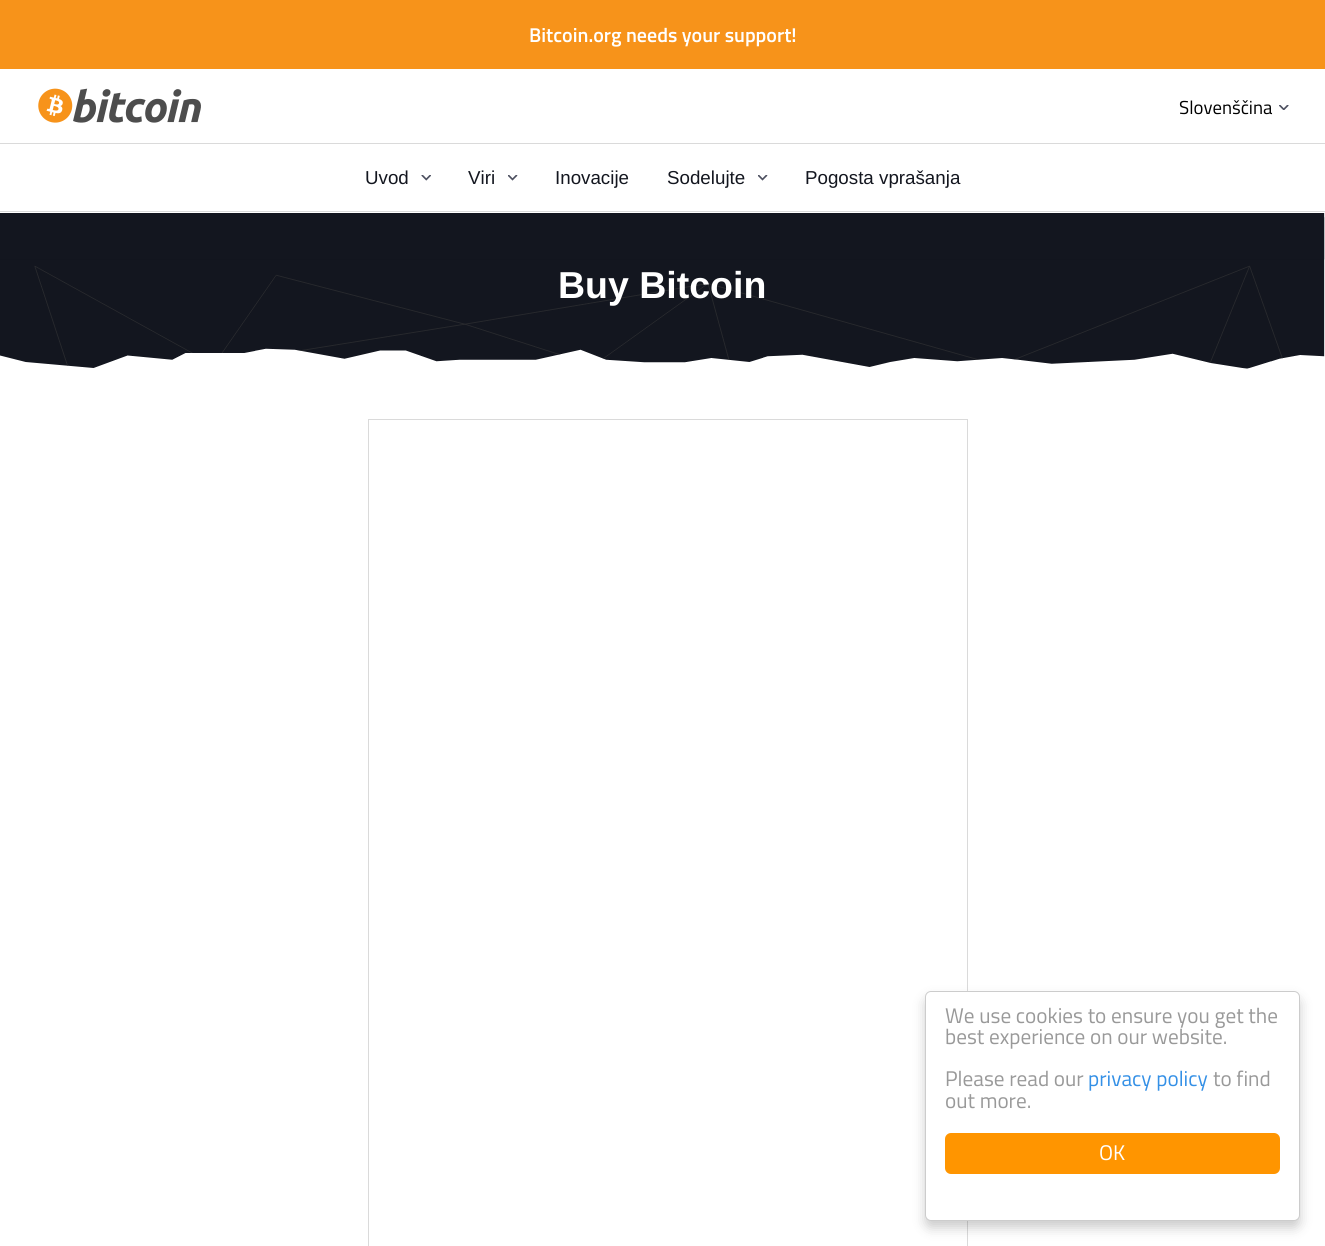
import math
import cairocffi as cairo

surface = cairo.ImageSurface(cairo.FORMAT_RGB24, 1325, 1246)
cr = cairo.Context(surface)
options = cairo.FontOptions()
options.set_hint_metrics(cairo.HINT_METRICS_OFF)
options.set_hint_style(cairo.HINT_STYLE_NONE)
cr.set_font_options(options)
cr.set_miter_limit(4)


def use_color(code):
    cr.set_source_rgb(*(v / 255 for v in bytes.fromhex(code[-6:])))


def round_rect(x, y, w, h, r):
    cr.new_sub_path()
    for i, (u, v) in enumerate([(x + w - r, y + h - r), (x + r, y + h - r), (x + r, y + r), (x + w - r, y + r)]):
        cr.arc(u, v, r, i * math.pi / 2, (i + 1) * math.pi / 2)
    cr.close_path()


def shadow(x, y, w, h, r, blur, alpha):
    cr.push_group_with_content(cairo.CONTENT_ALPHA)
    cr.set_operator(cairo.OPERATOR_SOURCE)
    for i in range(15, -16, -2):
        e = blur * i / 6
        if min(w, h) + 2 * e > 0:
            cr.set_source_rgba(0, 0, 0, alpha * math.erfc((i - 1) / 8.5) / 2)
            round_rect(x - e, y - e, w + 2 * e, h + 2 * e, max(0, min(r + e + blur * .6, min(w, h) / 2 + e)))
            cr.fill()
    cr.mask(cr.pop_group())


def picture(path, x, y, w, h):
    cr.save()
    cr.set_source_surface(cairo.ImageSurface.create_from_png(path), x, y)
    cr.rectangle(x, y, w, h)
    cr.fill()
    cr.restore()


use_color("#ffffff")
cr.paint()
use_color("#f7931a")
cr.rectangle(0, 0, 1325, 69)
cr.fill()
cr.select_font_face("Titillium Web SemiBold")
cr.set_font_size(20)
use_color("#ffffff")
cr.move_to(529, 42)
cr.show_text("Bitcoin.org needs your support!")
picture("img1.png", 38, 88, 163, 35)
cr.select_font_face("Titillium Web")
cr.set_font_size(18.75)
use_color("#000000")
cr.move_to(1179, 114)
cr.show_text("Slovenščina")
picture("img2.png", 1279, 105, 10, 5)
use_color("#dadada")
cr.rectangle(0, 143, 1325, 1)
cr.fill()
cr.rectangle(0, 211, 1325, 1)
cr.fill()
cr.select_font_face("Liberation Sans")
use_color("#13161f")
cr.move_to(365, 184)
cr.show_text("Uvod")
picture("img3.png", 421, 175, 10, 6)
cr.move_to(468, 184)
cr.show_text("Viri")
picture("img4.png", 508, 175, 10, 6)
cr.move_to(555, 184)
cr.show_text("Inovacije")
cr.move_to(667, 184)
cr.show_text("Sodelujte")
picture("img4.png", 758, 175, 10, 6)
cr.move_to(805, 184)
cr.show_text("Pogosta vprašanja")
picture("img5.png", 0, 213, 1325, 156)
cr.select_font_face("Liberation Sans", cairo.FONT_SLANT_NORMAL, cairo.FONT_WEIGHT_BOLD)
cr.set_font_size(37.5)
use_color("#ffffff")
cr.move_to(558, 298)
cr.show_text("Buy Bitcoin")
cr.rectangle(368.5, 419.5, 599, 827)
use_color("#dadada")
cr.set_line_width(1)
cr.stroke()
use_color("#000000")
shadow(925, 998, 375, 230, 6, 6, 0.2)
use_color("#ffffff")
round_rect(925.5, 991.5, 374, 229, 5.5)
cr.fill_preserve()
use_color("#cccccc")
cr.stroke()
cr.select_font_face("Titillium Web")
cr.set_font_size(21.25)
use_color("#999999")
cr.move_to(945, 1023)
cr.show_text("We use cookies to ensure you get the")
cr.move_to(945, 1044)
cr.show_text("best experience on our website.")
cr.move_to(945, 1086)
cr.show_text("Please read our")
use_color("#3490e6")
cr.move_to(1088, 1086)
cr.show_text("privacy policy")
use_color("#999999")
cr.move_to(1213, 1086)
cr.show_text("to find")
cr.move_to(945, 1108)
cr.show_text("out more.")
use_color("#ff9500")
round_rect(945, 1133, 335, 41, 6)
cr.fill()
use_color("#ffffff")
cr.move_to(1099, 1160)
cr.show_text("OK")
surface.write_to_png("result.png")
